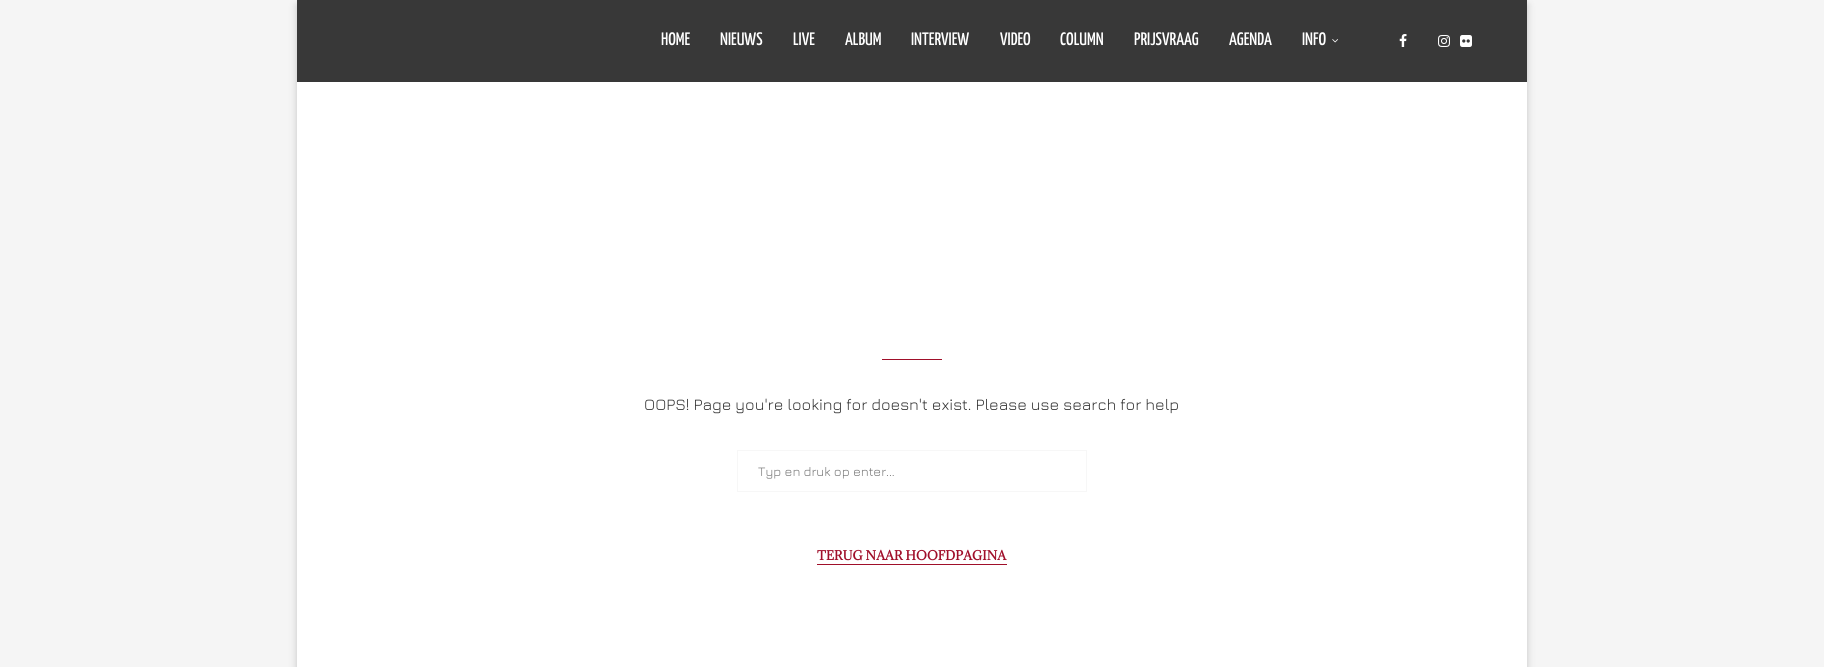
import math
import cairocffi as cairo

surface = cairo.ImageSurface(cairo.FORMAT_RGB24, 1824, 667)
cr = cairo.Context(surface)
options = cairo.FontOptions()
options.set_hint_metrics(cairo.HINT_METRICS_OFF)
options.set_hint_style(cairo.HINT_STYLE_NONE)
cr.set_font_options(options)
cr.set_miter_limit(4)


def use_color(code):
    cr.set_source_rgb(*(v / 255 for v in bytes.fromhex(code[-6:])))


def round_rect(x, y, w, h, r):
    cr.new_sub_path()
    for i, (u, v) in enumerate([(x + w - r, y + h - r), (x + r, y + h - r), (x + r, y + r), (x + w - r, y + r)]):
        cr.arc(u, v, r, i * math.pi / 2, (i + 1) * math.pi / 2)
    cr.close_path()


def shadow(x, y, w, h, r, blur, alpha):
    cr.push_group_with_content(cairo.CONTENT_ALPHA)
    cr.set_operator(cairo.OPERATOR_SOURCE)
    for i in range(15, -16, -2):
        e = blur * i / 6
        if min(w, h) + 2 * e > 0:
            cr.set_source_rgba(0, 0, 0, alpha * math.erfc((i - 1) / 8.5) / 2)
            round_rect(x - e, y - e, w + 2 * e, h + 2 * e, max(0, min(r + e + blur * .6, min(w, h) / 2 + e)))
            cr.fill()
    cr.mask(cr.pop_group())


def picture(path, x, y, w, h):
    cr.save()
    cr.set_source_surface(cairo.ImageSurface.create_from_png(path), x, y)
    cr.rectangle(x, y, w, h)
    cr.fill()
    cr.restore()


use_color("#f5f5f5")
cr.paint()
use_color("#000000")
shadow(297, 5, 1230, 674, 0, 4, 0.2)
use_color("#ffffff")
cr.rectangle(297, 82, 1230, 585)
cr.fill()
use_color("#383838")
cr.rectangle(297, 0, 1230, 82)
cr.fill()
cr.select_font_face("Yanone Kaffeesatz Medium")
cr.set_font_size(18)
use_color("#ffffff")
cr.move_to(661, 45)
cr.show_text("HOME")
cr.move_to(720, 45)
cr.show_text("NIEUWS")
cr.move_to(793, 45)
cr.show_text("LIVE")
cr.move_to(845, 45)
cr.show_text("ALBUM")
cr.move_to(911, 45)
cr.show_text("INTERVIEW")
cr.move_to(1000, 45)
cr.show_text("VIDEO")
cr.move_to(1060, 45)
cr.show_text("COLUMN")
cr.move_to(1134, 45)
cr.show_text("PRIJSVRAAG")
cr.move_to(1229, 45)
cr.show_text("AGENDA")
cr.move_to(1302, 45)
cr.show_text("INFO")
picture("img1.png", 1332, 39, 6, 4)
picture("img2.png", 1399, 34, 8, 13)
picture("img3.png", 1438, 35, 12, 12)
picture("img4.png", 1460, 35, 12, 12)
use_color("#a00f2a")
cr.rectangle(882, 359, 60, 1)
cr.fill()
cr.select_font_face("Jura")
cr.set_font_size(16)
use_color("#313131")
cr.move_to(644, 410)
cr.show_text("OOPS! Page you're looking for doesn't exist. Please use search for help")
cr.rectangle(737.5, 450.5, 349, 41)
use_color("#f7f7f7")
cr.set_line_width(1)
cr.stroke()
cr.set_font_size(13)
use_color("#757575")
cr.move_to(758, 476)
cr.show_text("Typ en druk op enter...")
cr.select_font_face("Adamina", cairo.FONT_SLANT_NORMAL, cairo.FONT_WEIGHT_BOLD)
cr.set_font_size(12)
use_color("#a00f2a")
cr.move_to(817, 560)
cr.show_text("TERUG NAAR HOOFDPAGINA")
cr.rectangle(817, 564, 190, 1)
cr.fill()
surface.write_to_png("result.png")
